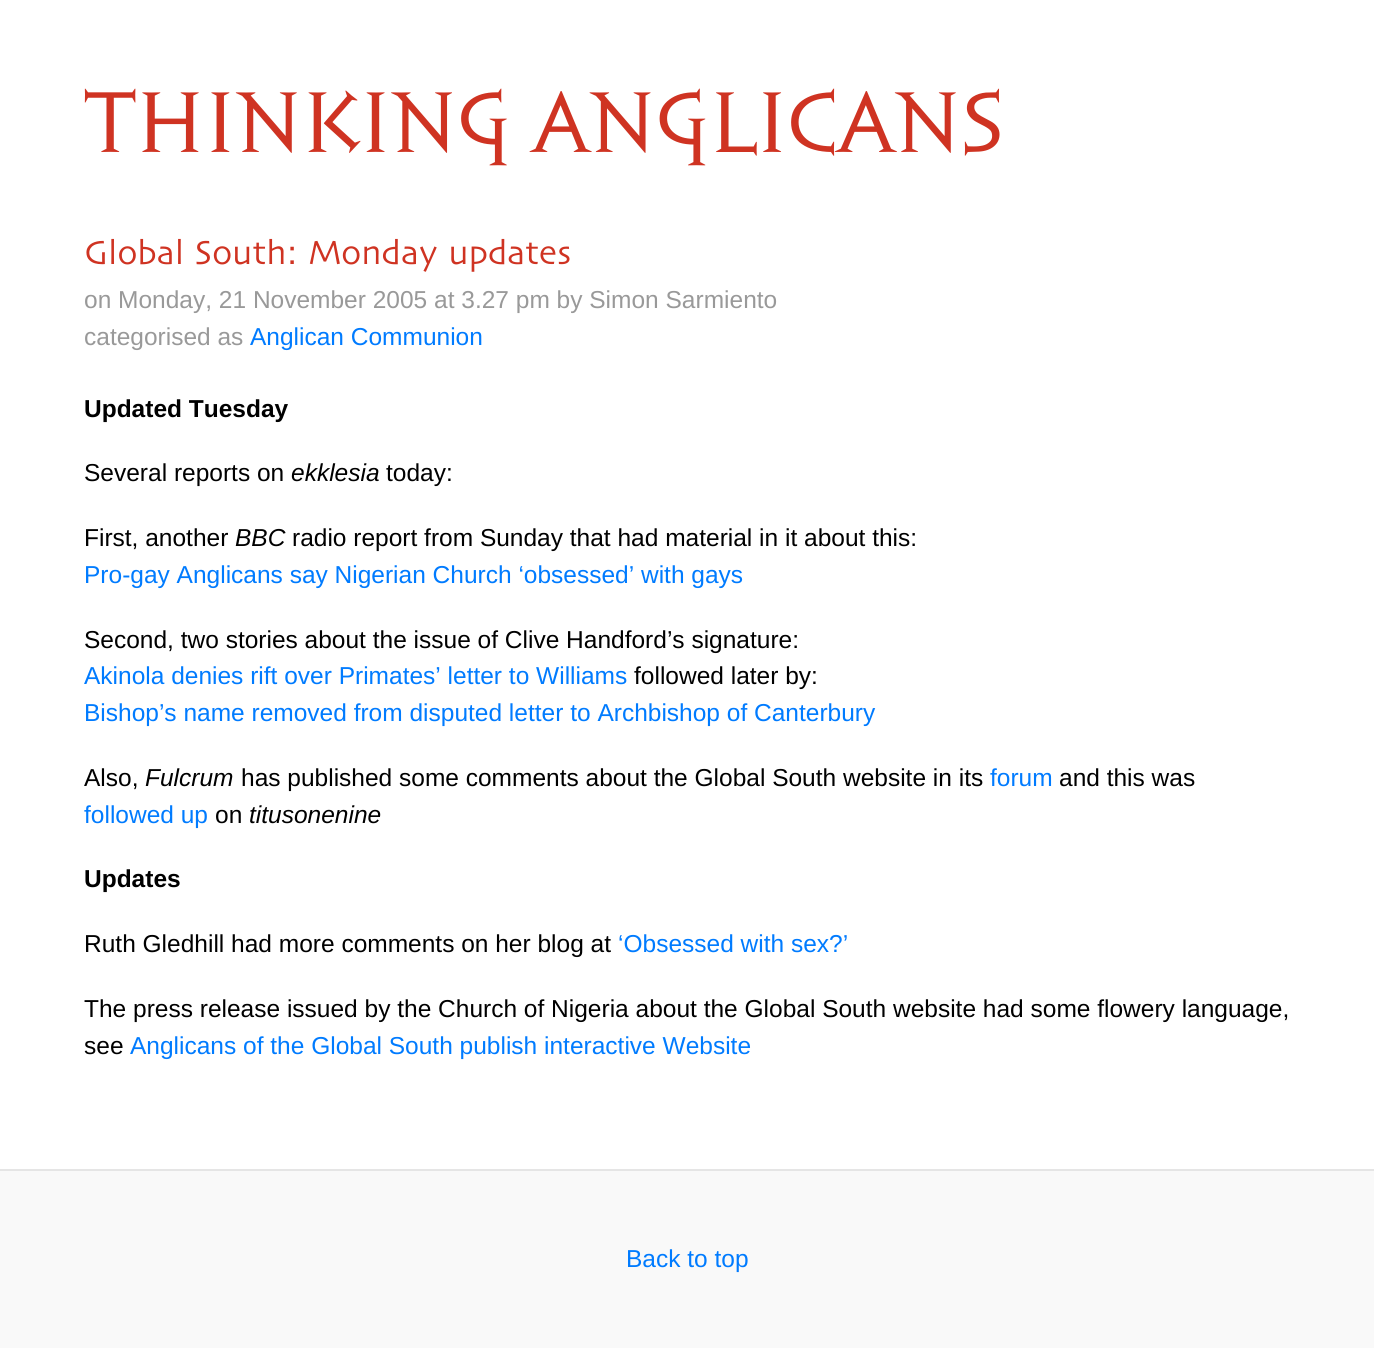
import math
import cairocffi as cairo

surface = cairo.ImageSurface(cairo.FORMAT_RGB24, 1374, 1353)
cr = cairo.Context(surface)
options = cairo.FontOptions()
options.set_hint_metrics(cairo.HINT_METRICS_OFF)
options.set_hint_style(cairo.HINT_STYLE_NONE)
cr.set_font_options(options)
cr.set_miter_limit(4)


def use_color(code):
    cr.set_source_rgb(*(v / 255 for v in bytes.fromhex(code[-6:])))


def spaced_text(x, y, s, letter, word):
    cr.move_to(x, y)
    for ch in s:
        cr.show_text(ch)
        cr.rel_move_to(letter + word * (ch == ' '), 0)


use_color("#ffffff")
cr.paint()
cr.select_font_face("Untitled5")
cr.set_font_size(80.5)
use_color("#cf3322")
cr.move_to(84, 152)
cr.show_text("THINKING")
cr.move_to(532, 152)
cr.show_text("ANGLICANS")
cr.select_font_face("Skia")
cr.set_font_size(35)
spaced_text(84, 264, "Global South: Monday updates", 0, -7)
cr.select_font_face("Liberation Sans")
cr.set_font_size(24.5)
use_color("#999999")
cr.move_to(84, 308)
cr.show_text("on Monday, 21 November 2005 at 3.27 pm by Simon Sarmiento")
cr.move_to(84, 345)
cr.show_text("categorised as")
use_color("#007bff")
cr.move_to(250, 345)
cr.show_text("Anglican Communion")
cr.select_font_face("Liberation Sans", cairo.FONT_SLANT_NORMAL, cairo.FONT_WEIGHT_BOLD)
use_color("#000000")
cr.move_to(84, 417)
cr.show_text("Updated Tuesday")
cr.select_font_face("Liberation Sans")
cr.move_to(84, 481)
cr.show_text("Several reports on")
cr.select_font_face("Liberation Sans", cairo.FONT_SLANT_ITALIC)
cr.move_to(291, 481)
cr.show_text("ekklesia")
cr.select_font_face("Liberation Sans")
cr.move_to(386, 481)
cr.show_text("today:")
cr.move_to(84, 546)
cr.show_text("First, another")
cr.select_font_face("Liberation Sans", cairo.FONT_SLANT_ITALIC)
cr.move_to(235, 546)
cr.show_text("BBC")
cr.select_font_face("Liberation Sans")
cr.move_to(292, 546)
cr.show_text("radio report from Sunday that had material in it about this:")
use_color("#007bff")
cr.move_to(84, 583)
cr.show_text("Pro-gay Anglicans say Nigerian Church ‘obsessed’ with gays")
use_color("#000000")
cr.move_to(84, 648)
cr.show_text("Second, two stories about the issue of Clive Handford’s signature:")
use_color("#007bff")
cr.move_to(84, 684)
cr.show_text("Akinola denies rift over Primates’ letter to Williams")
use_color("#000000")
cr.move_to(634, 684)
cr.show_text("followed later by:")
use_color("#007bff")
cr.move_to(84, 721)
cr.show_text("Bishop’s name removed from disputed letter to Archbishop of Canterbury")
use_color("#000000")
cr.move_to(84, 786)
cr.show_text("Also,")
cr.select_font_face("Liberation Sans", cairo.FONT_SLANT_ITALIC)
cr.move_to(145, 786)
cr.show_text("Fulcrum")
cr.select_font_face("Liberation Sans")
cr.move_to(241, 786)
cr.show_text("has published some comments about the Global South website in its")
use_color("#007bff")
cr.move_to(990, 786)
cr.show_text("forum")
use_color("#000000")
cr.move_to(1059, 786)
cr.show_text("and this was")
use_color("#007bff")
cr.move_to(84, 823)
cr.show_text("followed up")
use_color("#000000")
cr.move_to(215, 823)
cr.show_text("on")
cr.select_font_face("Liberation Sans", cairo.FONT_SLANT_ITALIC)
cr.move_to(249, 823)
cr.show_text("titusonenine")
cr.select_font_face("Liberation Sans", cairo.FONT_SLANT_NORMAL, cairo.FONT_WEIGHT_BOLD)
cr.move_to(84, 887)
cr.show_text("Updates")
cr.select_font_face("Liberation Sans")
cr.move_to(84, 952)
cr.show_text("Ruth Gledhill had more comments on her blog at")
use_color("#007bff")
cr.move_to(618, 952)
cr.show_text("‘Obsessed with sex?’")
use_color("#000000")
cr.move_to(84, 1017)
cr.show_text("The press release issued by the Church of Nigeria about the Global South website had some flowery language,")
cr.move_to(84, 1054)
cr.show_text("see")
use_color("#007bff")
cr.move_to(130, 1054)
cr.show_text("Anglicans of the Global South publish interactive Website")
use_color("#f9f9f9")
cr.rectangle(0, 1171, 1374, 177)
cr.fill()
use_color("#e5e5e5")
cr.rectangle(0, 1169, 1374, 2)
cr.fill()
use_color("#007bff")
cr.move_to(626, 1267)
cr.show_text("Back to top")
surface.write_to_png("result.png")
